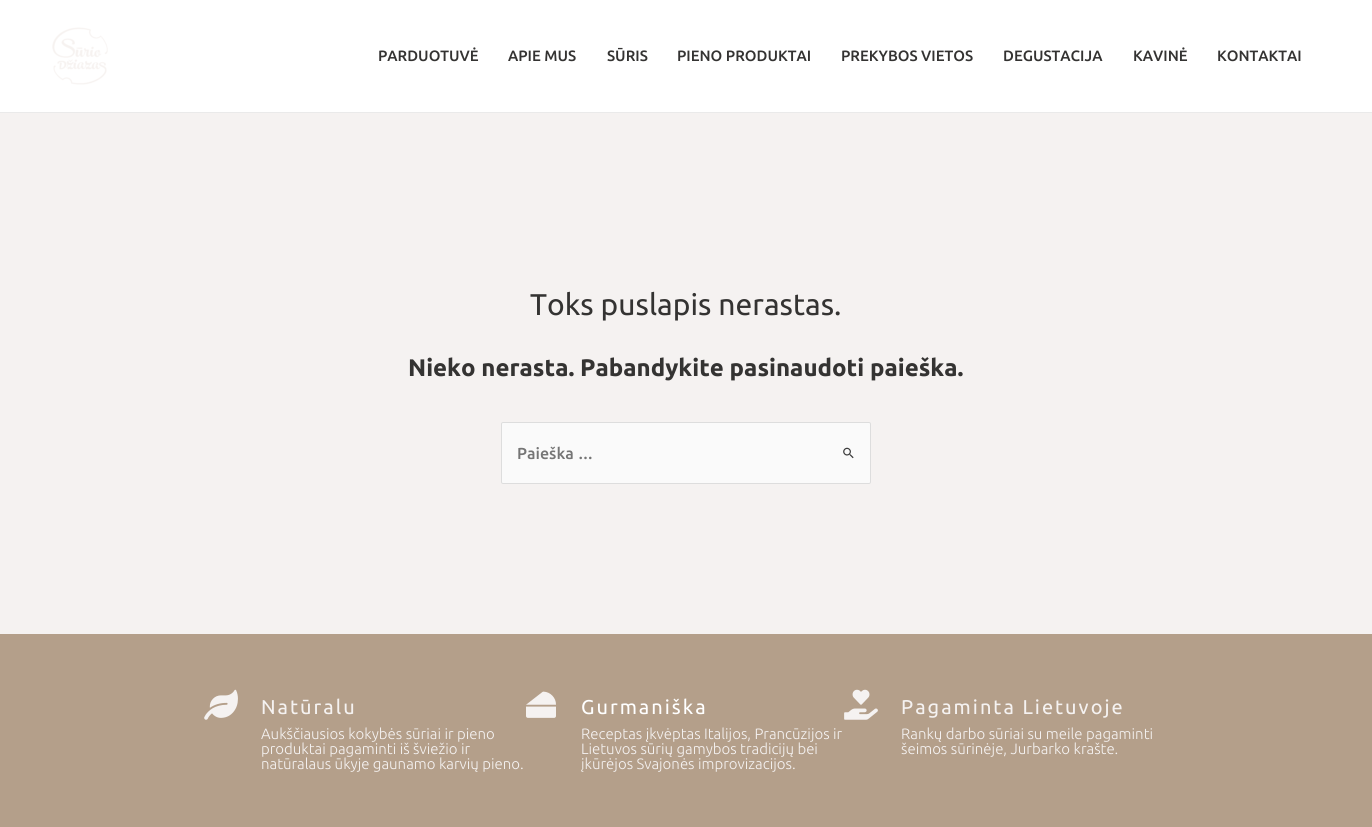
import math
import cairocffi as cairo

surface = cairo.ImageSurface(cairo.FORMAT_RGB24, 1372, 827)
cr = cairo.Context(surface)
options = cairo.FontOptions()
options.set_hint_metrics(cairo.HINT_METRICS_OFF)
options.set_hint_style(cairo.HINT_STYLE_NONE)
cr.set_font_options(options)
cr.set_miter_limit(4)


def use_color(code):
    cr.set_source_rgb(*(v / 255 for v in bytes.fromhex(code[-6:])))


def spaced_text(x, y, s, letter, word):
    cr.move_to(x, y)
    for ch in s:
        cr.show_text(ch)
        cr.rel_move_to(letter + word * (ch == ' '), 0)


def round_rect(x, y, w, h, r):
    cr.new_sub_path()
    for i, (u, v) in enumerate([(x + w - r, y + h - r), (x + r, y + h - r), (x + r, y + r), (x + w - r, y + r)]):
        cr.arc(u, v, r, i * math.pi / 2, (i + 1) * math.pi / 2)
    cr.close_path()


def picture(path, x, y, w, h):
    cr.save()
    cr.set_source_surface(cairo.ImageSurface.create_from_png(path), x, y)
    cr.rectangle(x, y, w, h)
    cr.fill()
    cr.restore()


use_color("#f5f2f1")
cr.paint()
use_color("#ffffff")
cr.rectangle(0, 0, 1372, 112)
cr.fill()
use_color("#eaeaea")
cr.rectangle(0, 112, 1372, 1)
cr.fill()
picture("img1.png", 52, 27, 56, 58)
cr.select_font_face("Ubuntu Medium")
cr.set_font_size(15)
use_color("#343332")
cr.move_to(378, 61)
cr.show_text("PARDUOTUVĖ")
cr.move_to(508, 61)
cr.show_text("APIE MUS")
cr.move_to(607, 61)
cr.show_text("SŪRIS")
cr.move_to(677, 61)
cr.show_text("PIENO PRODUKTAI")
cr.move_to(841, 61)
cr.show_text("PREKYBOS VIETOS")
cr.move_to(1003, 61)
cr.show_text("DEGUSTACIJA")
cr.move_to(1133, 61)
cr.show_text("KAVINĖ")
cr.move_to(1217, 61)
cr.show_text("KONTAKTAI")
cr.select_font_face("Ubuntu")
cr.set_font_size(30)
cr.move_to(530, 315)
cr.show_text("Toks puslapis nerastas.")
cr.select_font_face("Ubuntu", cairo.FONT_SLANT_NORMAL, cairo.FONT_WEIGHT_BOLD)
cr.set_font_size(24)
cr.move_to(408, 376)
cr.show_text("Nieko nerasta. Pabandykite pasinaudoti paieška.")
use_color("#fafafa")
round_rect(501.5, 422.5, 369, 61, 1.5)
cr.fill_preserve()
use_color("#dddddd")
cr.set_line_width(1)
cr.stroke()
cr.select_font_face("Ubuntu Medium")
cr.set_font_size(16)
use_color("#757575")
cr.move_to(517, 459)
cr.show_text("Paieška …")
picture("img2.png", 843, 447, 11, 12)
use_color("#b49f8a")
cr.rectangle(0, 634, 1372, 193)
cr.fill()
picture("img3.png", 204, 689, 34, 31)
cr.select_font_face("Ubuntu")
cr.set_font_size(20)
use_color("#f5f2f1")
spaced_text(261, 714, "Natūralu", 2, 0)
cr.select_font_face("Ubuntu Light")
cr.set_font_size(15)
cr.move_to(261, 739)
cr.show_text("Aukščiausios kokybės sūriai ir pieno")
cr.move_to(261, 754)
cr.show_text("produktai pagaminti iš šviežio ir")
cr.move_to(261, 769)
cr.show_text("natūralaus ūkyje gaunamo karvių pieno.")
picture("img4.png", 526, 691, 30, 27)
cr.select_font_face("Ubuntu")
cr.set_font_size(20)
use_color("#ffffff")
spaced_text(581, 714, "Gurmaniška", 2, 0)
cr.select_font_face("Ubuntu Light")
cr.set_font_size(15)
use_color("#f5f2f1")
cr.move_to(581, 739)
cr.show_text("Receptas įkvėptas Italijos, Prancūzijos ir")
cr.move_to(581, 754)
cr.show_text("Lietuvos sūrių gamybos tradicijų bei")
cr.move_to(581, 769)
cr.show_text("įkūrėjos Svajonės improvizacijos.")
picture("img5.png", 844, 689, 34, 31)
cr.select_font_face("Ubuntu")
cr.set_font_size(20)
spaced_text(901, 714, "Pagaminta Lietuvoje", 2, 0)
cr.select_font_face("Ubuntu Light")
cr.set_font_size(15)
cr.move_to(901, 739)
cr.show_text("Rankų darbo sūriai su meile pagaminti")
cr.move_to(901, 754)
cr.show_text("šeimos sūrinėje, Jurbarko krašte.")
surface.write_to_png("result.png")
